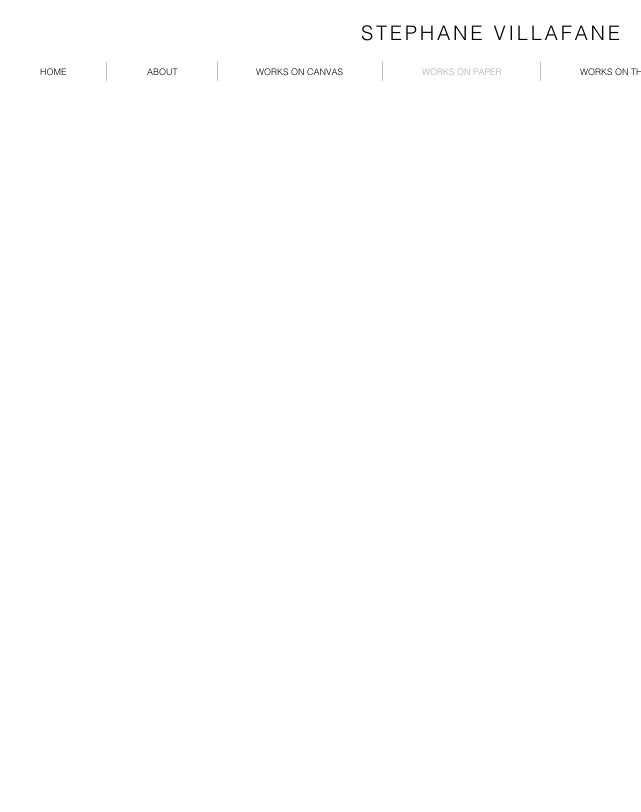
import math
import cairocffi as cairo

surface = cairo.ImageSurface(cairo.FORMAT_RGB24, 641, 812)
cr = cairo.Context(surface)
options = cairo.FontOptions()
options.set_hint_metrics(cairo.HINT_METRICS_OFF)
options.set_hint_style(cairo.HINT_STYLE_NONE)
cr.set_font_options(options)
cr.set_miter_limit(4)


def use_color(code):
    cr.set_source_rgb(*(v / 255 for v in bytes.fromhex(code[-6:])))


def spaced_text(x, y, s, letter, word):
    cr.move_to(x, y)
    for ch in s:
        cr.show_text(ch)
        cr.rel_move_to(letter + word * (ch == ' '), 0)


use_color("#ffffff")
cr.paint()
cr.select_font_face("helvetica Light")
cr.set_font_size(20)
use_color("#000000")
spaced_text(361, 40, "STEPHANE VILLAFANE", 2.75, 0)
cr.set_font_size(9)
cr.move_to(40, 75)
cr.show_text("HOME")
use_color("#bfbfbf")
cr.rectangle(106, 62, 1, 19)
cr.fill()
use_color("#000000")
cr.move_to(147, 75)
cr.show_text("ABOUT")
use_color("#bfbfbf")
cr.rectangle(217, 62, 1, 19)
cr.fill()
use_color("#000000")
cr.move_to(256, 75)
cr.show_text("WORKS ON CANVAS")
use_color("#bfbfbf")
cr.rectangle(382, 62, 1, 19)
cr.fill()
use_color("#a9a9a9")
cr.move_to(422, 75)
cr.show_text("WORKS ON PAPER")
use_color("#bfbfbf")
cr.rectangle(540, 62, 1, 19)
cr.fill()
use_color("#000000")
cr.move_to(580, 75)
cr.show_text("WORKS ON TH")
surface.write_to_png("result.png")
